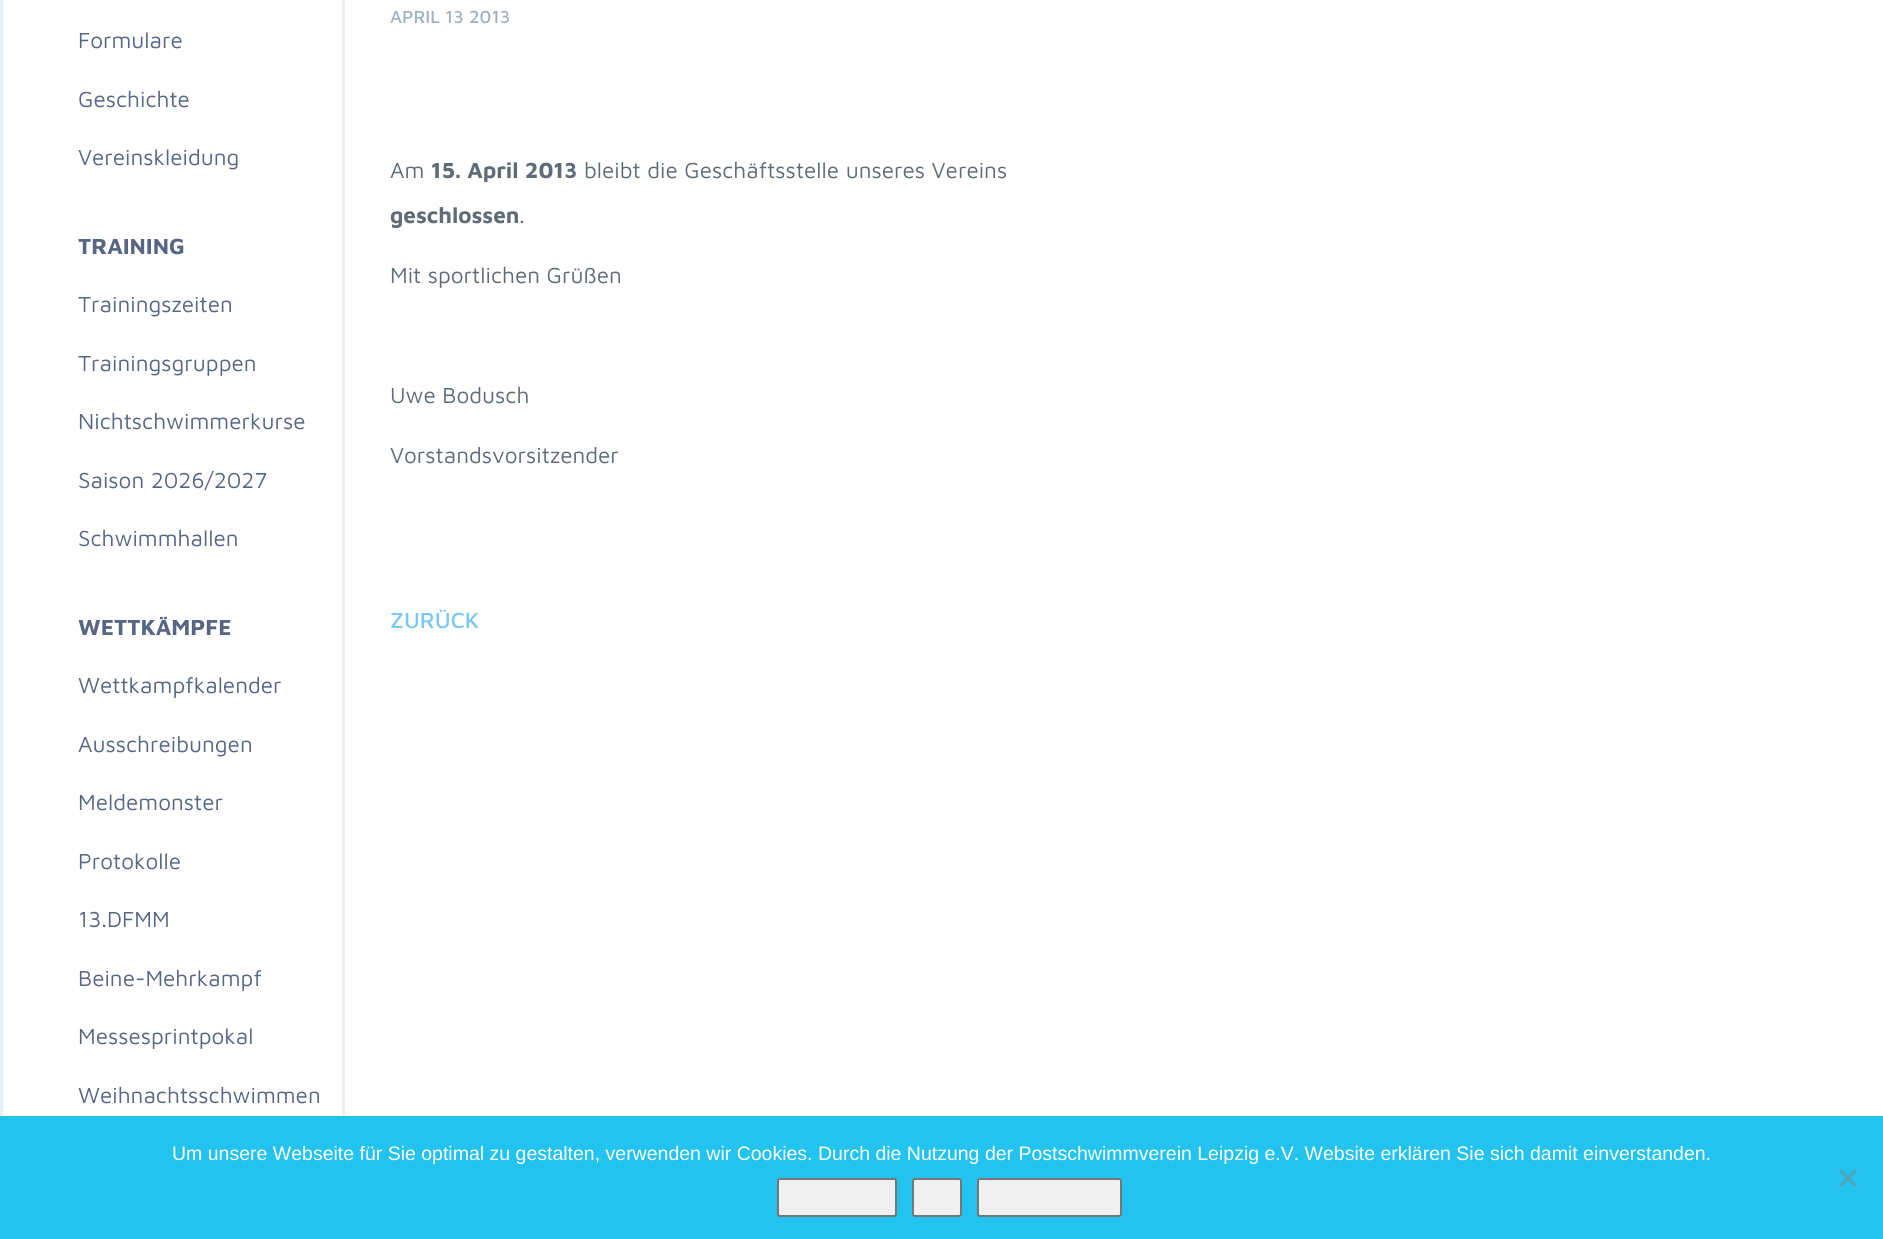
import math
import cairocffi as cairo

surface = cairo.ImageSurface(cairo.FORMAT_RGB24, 1883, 1239)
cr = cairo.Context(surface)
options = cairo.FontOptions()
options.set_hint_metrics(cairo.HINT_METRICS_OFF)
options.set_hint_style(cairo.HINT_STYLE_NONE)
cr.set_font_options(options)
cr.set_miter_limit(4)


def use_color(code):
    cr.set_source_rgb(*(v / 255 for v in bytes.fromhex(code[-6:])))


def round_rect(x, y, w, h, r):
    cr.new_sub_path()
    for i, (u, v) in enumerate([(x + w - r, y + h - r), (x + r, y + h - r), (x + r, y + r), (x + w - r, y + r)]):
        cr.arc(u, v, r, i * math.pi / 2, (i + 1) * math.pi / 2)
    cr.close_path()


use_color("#ffffff")
cr.paint()
cr.rectangle(1.5, -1.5, 342, 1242)
use_color("#e9eff4")
cr.set_line_width(3)
cr.stroke()
cr.select_font_face("Maven Pro")
cr.set_font_size(22.5)
use_color("#576685")
cr.move_to(78, 48)
cr.show_text("Formulare")
cr.move_to(78, 107)
cr.show_text("Geschichte")
cr.move_to(78, 165)
cr.show_text("Vereinskleidung")
cr.select_font_face("Maven Pro", cairo.FONT_SLANT_NORMAL, cairo.FONT_WEIGHT_BOLD)
cr.move_to(78, 254)
cr.show_text("TRAINING")
cr.select_font_face("Maven Pro")
cr.move_to(78, 312)
cr.show_text("Trainingszeiten")
cr.move_to(78, 371)
cr.show_text("Trainingsgruppen")
cr.move_to(78, 429)
cr.show_text("Nichtschwimmerkurse")
cr.move_to(78, 488)
cr.show_text("Saison 2026/2027")
cr.move_to(78, 546)
cr.show_text("Schwimmhallen")
cr.select_font_face("Maven Pro", cairo.FONT_SLANT_NORMAL, cairo.FONT_WEIGHT_BOLD)
cr.move_to(78, 635)
cr.show_text("WETTKÄMPFE")
cr.select_font_face("Maven Pro")
cr.move_to(78, 693)
cr.show_text("Wettkampfkalender")
cr.move_to(78, 752)
cr.show_text("Ausschreibungen")
cr.move_to(78, 810)
cr.show_text("Meldemonster")
cr.move_to(78, 869)
cr.show_text("Protokolle")
cr.move_to(78, 927)
cr.show_text("13.DFMM")
cr.move_to(78, 986)
cr.show_text("Beine-Mehrkampf")
cr.move_to(78, 1044)
cr.show_text("Messesprintpokal")
cr.move_to(78, 1103)
cr.show_text("Weihnachtsschwimmen")
cr.select_font_face("Maven Pro Medium")
cr.set_font_size(18)
use_color("#a1b1c1")
cr.move_to(390, 23)
cr.show_text("APRIL 13 2013")
cr.select_font_face("Maven Pro")
cr.set_font_size(22.5)
use_color("#606b78")
cr.move_to(390, 178)
cr.show_text("Am")
cr.select_font_face("Maven Pro", cairo.FONT_SLANT_NORMAL, cairo.FONT_WEIGHT_BOLD)
cr.move_to(431, 178)
cr.show_text("15. April 2013")
cr.select_font_face("Maven Pro")
cr.move_to(584, 178)
cr.show_text("bleibt die Geschäftsstelle unseres Vereins")
cr.select_font_face("Maven Pro", cairo.FONT_SLANT_NORMAL, cairo.FONT_WEIGHT_BOLD)
cr.move_to(390, 223)
cr.show_text("geschlossen")
cr.select_font_face("Maven Pro")
cr.move_to(519, 223)
cr.show_text(".")
cr.move_to(390, 283)
cr.show_text("Mit sportlichen Grüßen")
cr.move_to(390, 403)
cr.show_text("Uwe Bodusch")
cr.move_to(390, 463)
cr.show_text("Vorstandsvorsitzender")
cr.select_font_face("Maven Pro Medium")
use_color("#7bc8f5")
cr.move_to(390, 628)
cr.show_text("ZURÜCK")
use_color("#23c3ef")
cr.rectangle(0, 1116, 1883, 123)
cr.fill()
cr.select_font_face("Liberation Sans")
cr.set_font_size(19.5)
use_color("#ffffff")
cr.move_to(172, 1160)
cr.show_text("Um unsere Webseite für Sie optimal zu gestalten, verwenden wir Cookies. Durch die Nutzung der Postschwimmverein Leipzig e.V. Website erklären Sie sich damit einverstanden.")
use_color("#efefef")
round_rect(778, 1179, 118, 37, 2)
cr.fill_preserve()
use_color("#767676")
cr.set_line_width(2)
cr.stroke()
use_color("#efefef")
round_rect(913, 1179, 48, 37, 2)
cr.fill_preserve()
use_color("#767676")
cr.stroke()
use_color("#efefef")
round_rect(978, 1179, 143, 37, 2)
cr.fill_preserve()
use_color("#767676")
cr.stroke()
use_color("#52a2b8")
cr.new_path()
cr.move_to(1855, 1169)
cr.line_to(1857, 1171.5)
cr.line_to(1841, 1187.5)
cr.line_to(1839, 1185)
cr.close_path()
cr.fill()
cr.new_path()
cr.move_to(1839, 1171.5)
cr.line_to(1841, 1169)
cr.line_to(1857, 1185)
cr.line_to(1855, 1187.5)
cr.close_path()
cr.fill()
surface.write_to_png("result.png")
